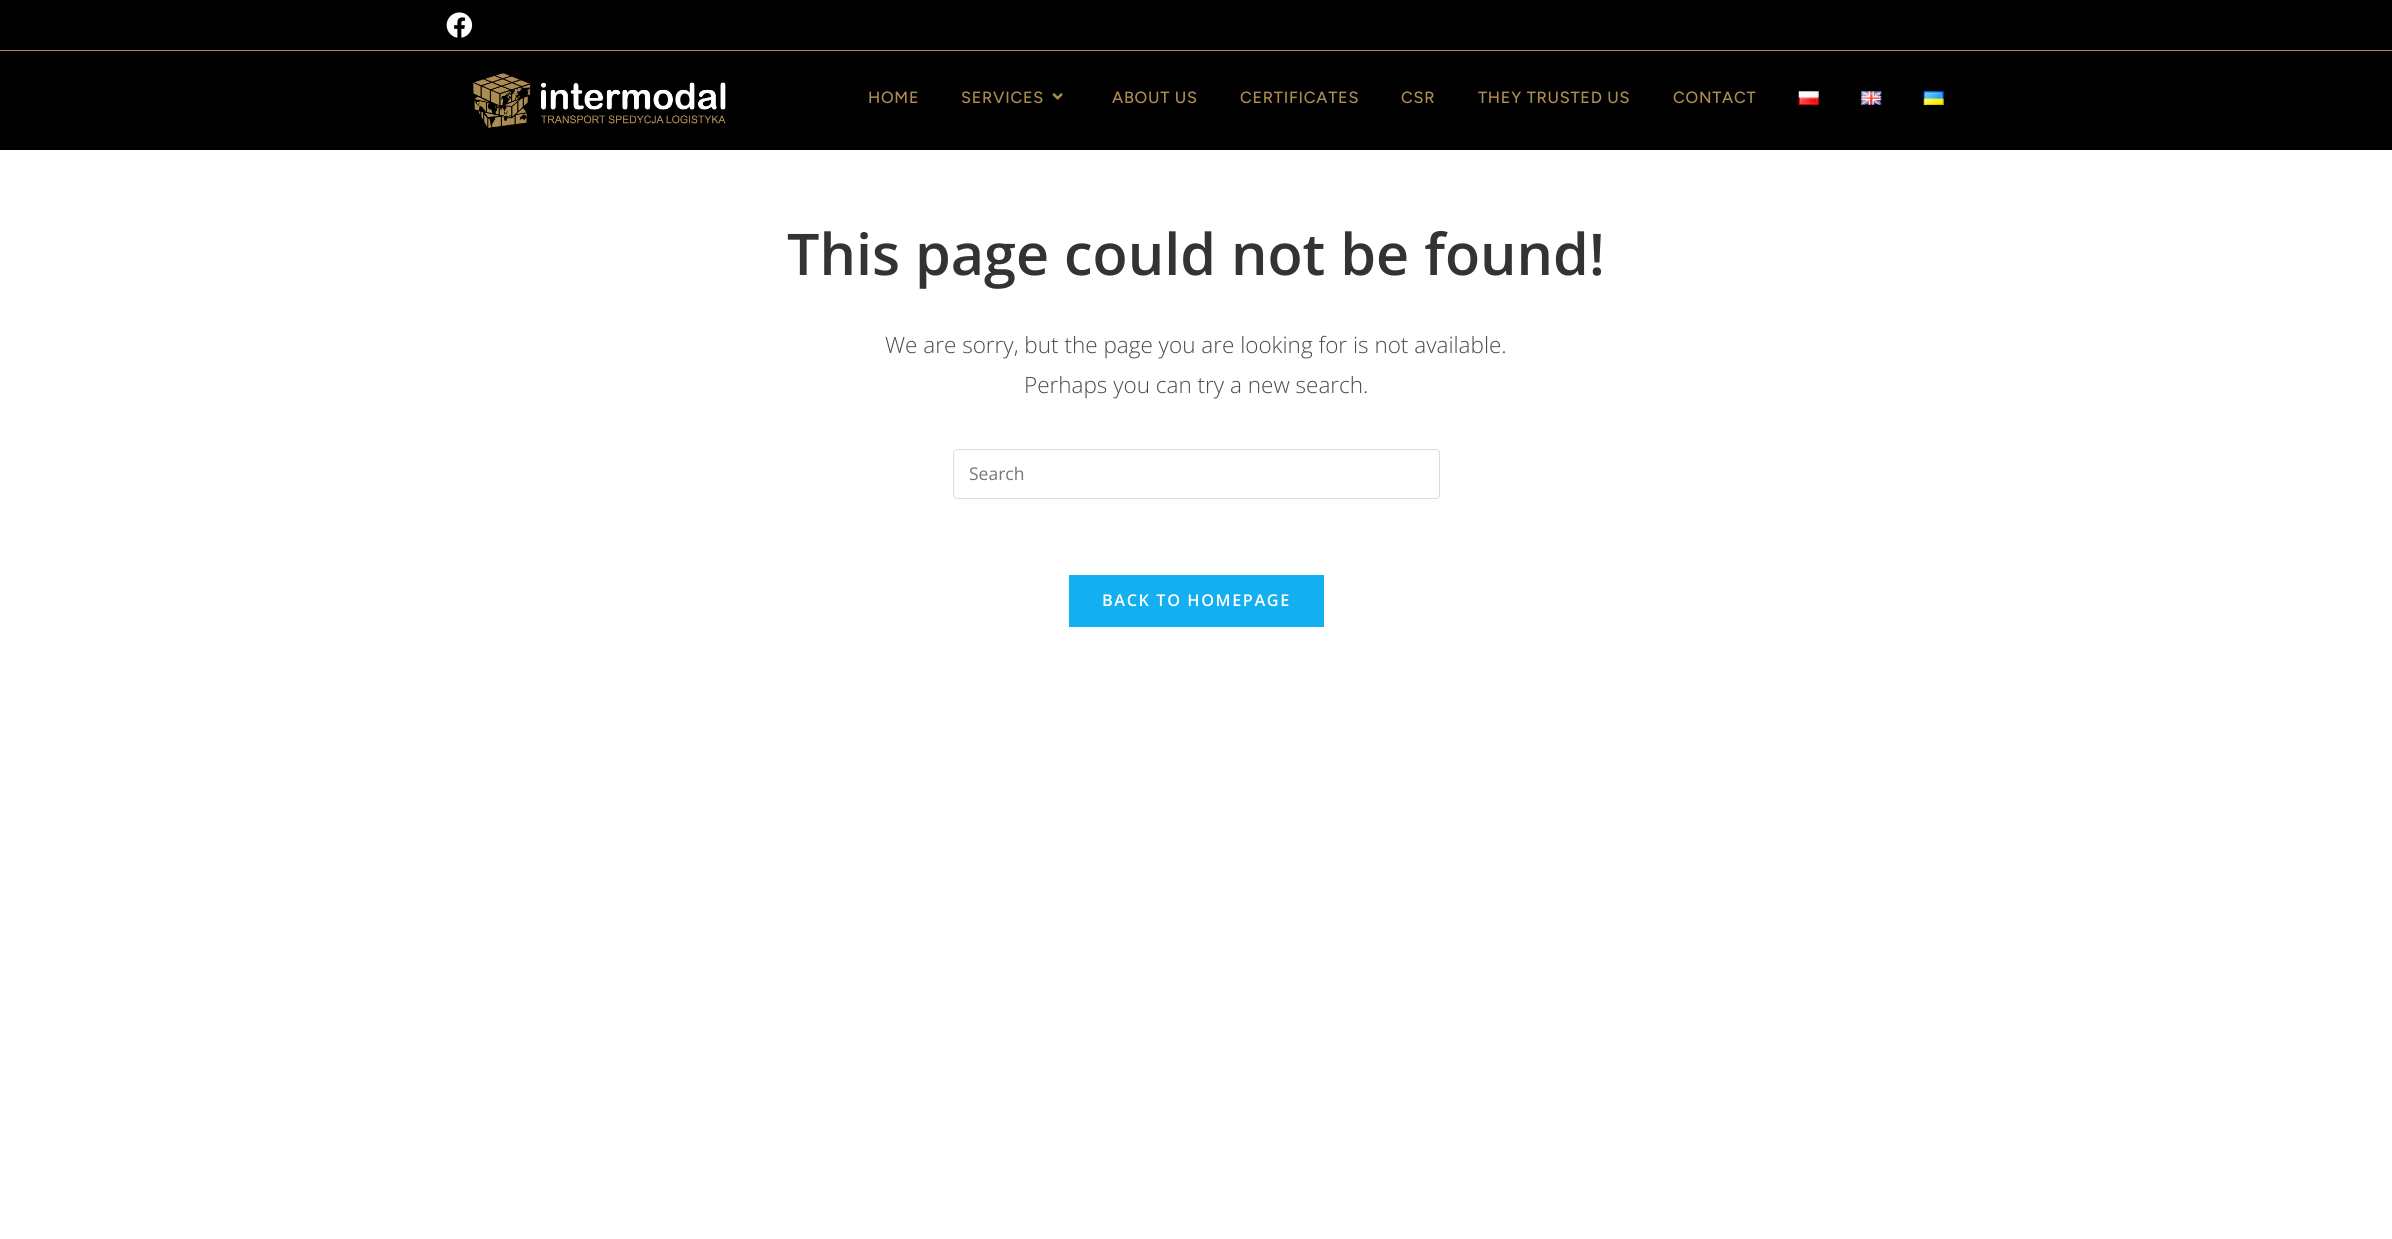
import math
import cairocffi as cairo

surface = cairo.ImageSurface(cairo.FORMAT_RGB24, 2392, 1239)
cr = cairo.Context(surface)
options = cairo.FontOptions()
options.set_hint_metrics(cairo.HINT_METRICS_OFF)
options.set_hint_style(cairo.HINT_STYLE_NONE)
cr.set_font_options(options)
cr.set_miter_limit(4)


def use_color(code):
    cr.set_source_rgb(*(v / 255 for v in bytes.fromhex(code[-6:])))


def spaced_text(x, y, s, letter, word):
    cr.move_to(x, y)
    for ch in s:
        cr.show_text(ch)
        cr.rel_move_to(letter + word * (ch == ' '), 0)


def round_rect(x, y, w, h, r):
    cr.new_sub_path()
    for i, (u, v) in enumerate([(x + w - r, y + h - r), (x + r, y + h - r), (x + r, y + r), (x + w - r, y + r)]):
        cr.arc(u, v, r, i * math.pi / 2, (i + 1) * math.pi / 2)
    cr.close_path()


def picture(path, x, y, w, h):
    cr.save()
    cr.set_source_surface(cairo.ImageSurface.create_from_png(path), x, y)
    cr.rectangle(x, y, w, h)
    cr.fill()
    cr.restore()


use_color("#ffffff")
cr.paint()
use_color("#000000")
cr.rectangle(0, 0, 2392, 50)
cr.fill()
use_color("#ad8c53")
cr.rectangle(0, 50, 2392, 1)
cr.fill()
picture("img1.png", 446, 12, 27, 26)
use_color("#000000")
cr.rectangle(0, 51, 2392, 99)
cr.fill()
picture("img2.png", 473, 73, 253, 55)
cr.select_font_face("Figtree Medium")
cr.set_font_size(16.25)
use_color("#ad8c53")
spaced_text(868, 103, "HOME", 0.75, 0)
spaced_text(961, 103, "SERVICES", 0.75, 0)
picture("img3.png", 1052, 93, 11, 7)
spaced_text(1112, 103, "ABOUT US", 0.75, 0)
spaced_text(1240, 103, "CERTIFICATES", 0.75, 0)
spaced_text(1401, 103, "CSR", 0.75, 0)
spaced_text(1478, 103, "THEY TRUSTED US", 0.75, 0)
spaced_text(1673, 103, "CONTACT", 0.75, 0)
picture("img4.png", 1798, 91, 21, 14)
picture("img5.png", 1861, 91, 21, 14)
picture("img6.png", 1923, 91, 21, 14)
cr.select_font_face("Open Sans SemiBold")
cr.set_font_size(57.5)
use_color("#333333")
cr.move_to(787, 275)
cr.show_text("This page could not be found!")
cr.select_font_face("Open Sans Light")
cr.set_font_size(22.5)
use_color("#4a4a4a")
cr.move_to(885, 353)
cr.show_text("We are sorry, but the page you are looking for is not available.")
cr.move_to(1024, 393)
cr.show_text("Perhaps you can try a new search.")
round_rect(953.5, 449.5, 486, 49, 3.5)
use_color("#dddddd")
cr.set_line_width(1)
cr.stroke()
cr.select_font_face("Open Sans")
cr.set_font_size(17.5)
use_color("#757575")
cr.move_to(969, 480)
cr.show_text("Search")
use_color("#13aff0")
cr.rectangle(1069, 575, 255, 52)
cr.fill()
cr.select_font_face("Open Sans SemiBold")
cr.set_font_size(16.25)
use_color("#ffffff")
spaced_text(1102, 606, "BACK TO HOMEPAGE", 1.6, 0)
surface.write_to_png("result.png")
